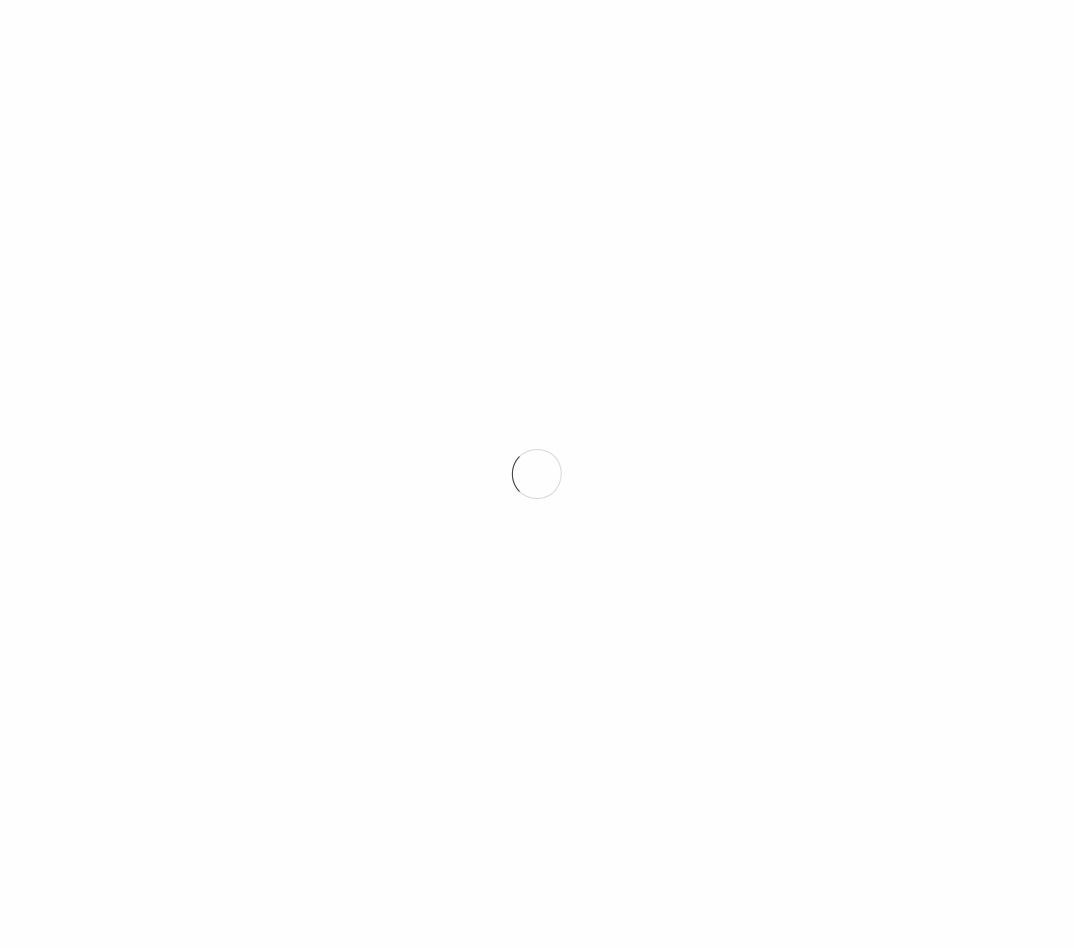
import math
import cairocffi as cairo

surface = cairo.ImageSurface(cairo.FORMAT_RGB24, 1074, 948)
cr = cairo.Context(surface)
options = cairo.FontOptions()
options.set_hint_metrics(cairo.HINT_METRICS_OFF)
options.set_hint_style(cairo.HINT_STYLE_NONE)
cr.set_font_options(options)
cr.set_miter_limit(4)


def use_color(code):
    cr.set_source_rgb(*(v / 255 for v in bytes.fromhex(code[-6:])))


use_color("#fefefe")
cr.paint()
cr.new_path()
cr.move_to(519.5, 456.5)
cr.curve_to(525.5, 451, 534, 448.5, 542, 450)
cr.curve_to(570.5, 455.5, 566, 498.5, 537, 498.5)
cr.curve_to(530.5, 498.5, 524, 496, 519.5, 491.5)
use_color("#eaeaea")
cr.set_line_width(1)
cr.stroke()
cr.new_path()
cr.move_to(519.5, 491.5)
cr.curve_to(510, 482, 510, 466, 519.5, 456.5)
use_color("#7f7f7f")
cr.stroke()
cr.new_path()
cr.move_to(519.5, 456.5)
cr.curve_to(525.5, 451, 534, 448.5, 542, 450)
cr.curve_to(570.5, 455.5, 566, 498.5, 537, 498.5)
cr.curve_to(530.5, 498.5, 524, 496, 519.5, 491.5)
cr.set_source_rgba(0, 0, 0, 0.08)
cr.stroke()
cr.new_path()
cr.move_to(519.5, 491.5)
cr.curve_to(510, 482, 510, 466, 519.5, 456.5)
cr.set_source_rgba(0, 0, 0, 0.5)
cr.stroke()
surface.write_to_png("result.png")
